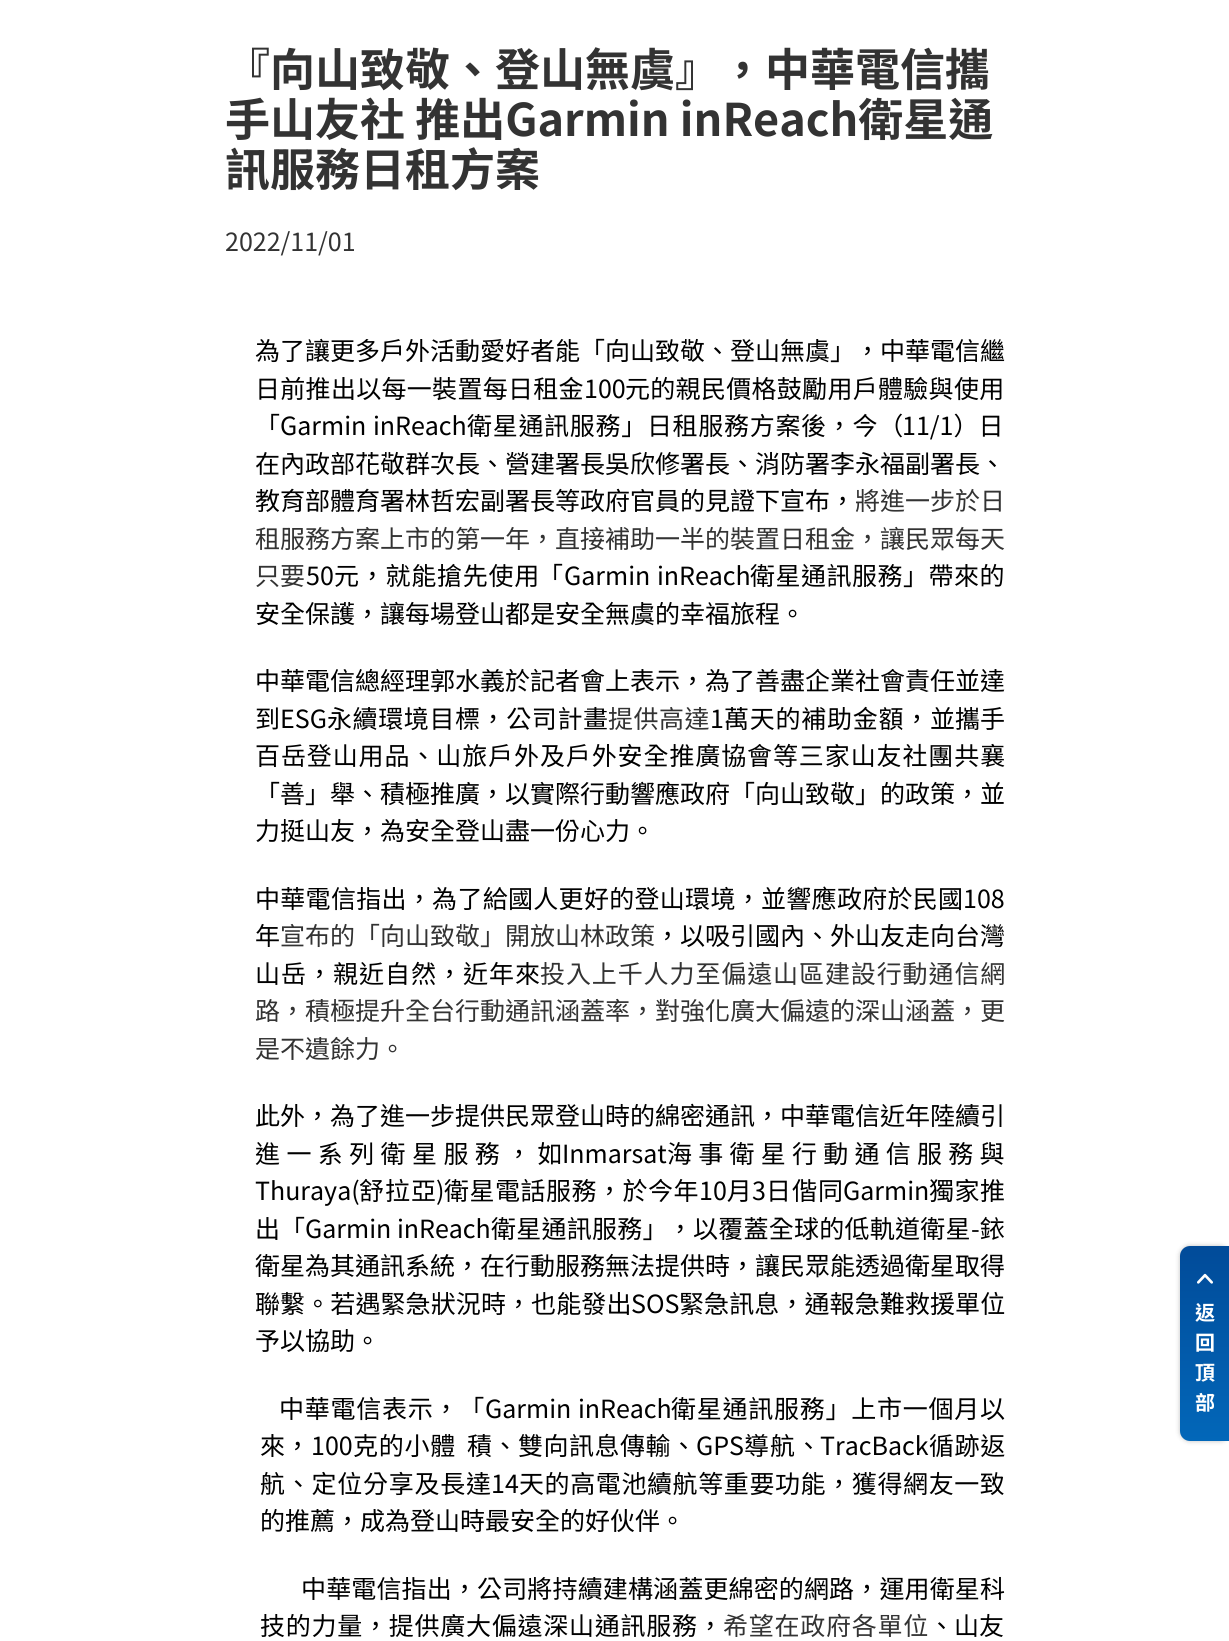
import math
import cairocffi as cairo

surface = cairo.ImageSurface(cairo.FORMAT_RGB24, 1229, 1641)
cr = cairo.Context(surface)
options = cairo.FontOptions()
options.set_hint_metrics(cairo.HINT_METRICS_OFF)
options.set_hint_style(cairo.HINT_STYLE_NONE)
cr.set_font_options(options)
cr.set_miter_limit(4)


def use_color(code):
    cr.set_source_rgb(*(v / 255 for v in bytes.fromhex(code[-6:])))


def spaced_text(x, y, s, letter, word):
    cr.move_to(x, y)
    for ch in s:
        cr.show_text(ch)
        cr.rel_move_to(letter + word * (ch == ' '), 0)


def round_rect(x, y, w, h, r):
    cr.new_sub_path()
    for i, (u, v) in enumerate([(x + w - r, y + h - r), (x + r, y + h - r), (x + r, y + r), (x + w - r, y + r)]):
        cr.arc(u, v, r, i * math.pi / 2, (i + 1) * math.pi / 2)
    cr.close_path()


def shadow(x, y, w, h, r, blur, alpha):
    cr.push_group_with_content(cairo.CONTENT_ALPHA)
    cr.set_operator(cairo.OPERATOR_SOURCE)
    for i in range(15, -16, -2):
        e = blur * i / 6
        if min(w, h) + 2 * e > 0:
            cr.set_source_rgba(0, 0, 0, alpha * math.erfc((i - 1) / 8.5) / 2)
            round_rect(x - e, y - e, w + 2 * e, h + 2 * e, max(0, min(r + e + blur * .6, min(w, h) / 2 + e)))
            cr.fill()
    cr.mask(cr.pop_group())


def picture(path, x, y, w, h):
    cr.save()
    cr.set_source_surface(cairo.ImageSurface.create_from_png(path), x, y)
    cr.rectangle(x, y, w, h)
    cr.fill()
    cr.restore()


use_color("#ffffff")
cr.paint()
cr.select_font_face("Noto Sans TC", cairo.FONT_SLANT_NORMAL, cairo.FONT_WEIGHT_BOLD)
cr.set_font_size(45)
use_color("#333333")
cr.move_to(225, 86)
cr.show_text("『向山致敬、登山無虞』，中華電信攜")
cr.move_to(225, 136)
cr.show_text("手山友社 推出Garmin inReach衛星通")
cr.move_to(225, 186)
cr.show_text("訊服務日租方案")
cr.select_font_face("Noto Sans TC")
cr.set_font_size(25)
cr.move_to(225, 251)
cr.show_text("2022/11/01")
use_color("#000000")
cr.move_to(255, 360)
cr.show_text("為了讓更多戶外活動愛好者能「向山致敬、登山無虞」，中華電信繼")
spaced_text(255, 398, "日前推出以每一裝置每日租金", 0.3, 0)
cr.move_to(584, 398)
cr.show_text("100")
spaced_text(625, 398, "元的親民價格鼓勵用戶體驗與使用", 0.3, 0)
cr.move_to(255, 435)
cr.show_text("「")
spaced_text(280, 435, "Garmin inReach", 0, 1)
spaced_text(467, 435, "衛星通訊服務」日租服務方案後，今（", 0.7, 0)
cr.move_to(902, 435)
cr.show_text("11/1）日")
cr.move_to(255, 473)
cr.show_text("在內政部花敬群次長、營建署長吳欣修署長、消防署李永福副署長、")
cr.move_to(255, 510)
cr.show_text("教育部體育署林哲宏副署長等政府官員的見證下宣布，")
use_color("#333333")
cr.move_to(855, 510)
cr.show_text("將進一步於日")
cr.move_to(255, 548)
cr.show_text("租服務方案上市的第一年，直接補助一半的裝置日租金，讓民眾每天")
cr.move_to(255, 585)
cr.show_text("只要")
use_color("#000000")
cr.move_to(306, 585)
cr.show_text("50")
spaced_text(334, 585, "元，就能搶先使用", 0.75, 0)
cr.move_to(538, 585)
cr.show_text("「")
spaced_text(564, 585, "Garmin inReach", 0, 1)
spaced_text(750, 585, "衛星通訊服務」帶來的", 0.5, 0)
cr.move_to(255, 623)
cr.show_text("安全保護，讓每場登山都是安全無虞的幸福旅程。")
cr.move_to(255, 690)
cr.show_text("中華電信總經理郭水義於記者會上表示，為了善盡企業社會責任並達")
cr.move_to(255, 728)
cr.show_text("到")
cr.move_to(280, 728)
cr.show_text("ESG")
spaced_text(327, 728, "永續環境目標，公司計畫", 0.6, 0)
use_color("#333333")
spaced_text(608, 728, "提供高達", 0.5, 0)
use_color("#000000")
cr.move_to(710, 728)
cr.show_text("1")
spaced_text(724, 728, "萬天的補助金額，並", 0.75, 0)
cr.move_to(955, 728)
cr.show_text("攜手")
spaced_text(255, 765, "百岳登山用品、山旅戶外及戶外安全推廣協會等三家山友社團共襄", 0.9, 0)
cr.move_to(255, 803)
cr.show_text("「善」舉、積極推廣，以實際行動響應政府「向山致敬」的政策，並")
cr.move_to(255, 840)
cr.show_text("力挺山友，為安全登山盡一份心力。")
spaced_text(255, 908, "中華電信指出，為了給國人更好的登山環境，並響應政府於民國", 0.3, 0)
cr.move_to(963, 908)
cr.show_text("108")
cr.move_to(255, 945)
cr.show_text("年")
use_color("#333333")
cr.move_to(280, 945)
cr.show_text("宣布的「向山致敬」開放山林政策")
use_color("#000000")
cr.move_to(655, 945)
cr.show_text("，以吸引國內、外山友走向台灣")
spaced_text(255, 983, "山岳，親近自然，近年來", 1, 0)
use_color("#333333")
spaced_text(540, 983, "投入上千人力至偏遠山區建設行動通信網", 0.9, 0)
cr.move_to(255, 1020)
cr.show_text("路，積極提升全台行動通訊涵蓋率，對強化廣大偏遠的深山涵蓋，更")
cr.move_to(255, 1058)
cr.show_text("是不遺餘力。")
use_color("#000000")
cr.move_to(255, 1125)
cr.show_text("此外，為了進一步提供民眾登山時的綿密通訊，中華電信近年陸續引")
spaced_text(255, 1163, "進一系列衛星服務，如", 6.4, 0)
cr.move_to(562, 1163)
cr.show_text("Inmarsat")
spaced_text(667, 1163, "海事衛星行動通信服務與", 6.25, 0)
cr.move_to(255, 1200)
cr.show_text("Thuraya(")
spaced_text(359, 1200, "舒拉亞", 1, 0)
cr.move_to(436, 1200)
cr.show_text(")")
spaced_text(444, 1200, "衛星電話服務，於今年", 0.5, 0)
cr.move_to(699, 1200)
cr.show_text("10月")
cr.move_to(752, 1200)
cr.show_text("3")
spaced_text(766, 1200, "日偕同", 1, 0)
cr.move_to(843, 1200)
cr.show_text("Garmin")
spaced_text(929, 1200, "獨家推", 0.5, 0)
cr.move_to(255, 1238)
cr.show_text("出「")
cr.move_to(305, 1238)
cr.show_text("Garmin inReach")
spaced_text(491, 1238, "衛星通訊服務」，以覆蓋全球的低軌道衛星", 0.25, 0)
cr.move_to(971, 1238)
cr.show_text("-銥")
cr.move_to(255, 1275)
cr.show_text("衛星為其通訊系統，在行動服務無法提供時，讓民眾能透過衛星取得")
spaced_text(255, 1313, "聯繫。若遇緊急狀況時，也能發出", 0.1, 0)
cr.move_to(631, 1313)
cr.show_text("SOS")
spaced_text(679, 1313, "緊急訊息，通報急難救援單位", 0.1, 0)
cr.move_to(255, 1350)
cr.show_text("予以協助。")
spaced_text(279, 1418, "中華電信表示，「", 0.75, 0)
spaced_text(485, 1418, "Garmin inReach", 0, 1)
spaced_text(671, 1418, "衛星通訊服務」上市一個月以", 0.75, 0)
cr.move_to(260, 1455)
cr.show_text("來，")
cr.move_to(311, 1455)
cr.show_text("100")
spaced_text(353, 1455, "克的小體", 0.75, 0)
spaced_text(467, 1455, "積、雙向訊息傳輸、", 0.5, 0)
cr.move_to(696, 1455)
cr.show_text("GPS")
spaced_text(744, 1455, "導航、", 1, 0)
cr.move_to(820, 1455)
cr.show_text("TracBack")
spaced_text(929, 1455, "循跡返", 0.6, 0)
spaced_text(260, 1493, "航、定位分享及長達", 0.75, 0)
cr.move_to(491, 1493)
cr.show_text("14")
spaced_text(519, 1493, "天的高電池續航等重要功能，獲得網友一致", 0.6, 0)
cr.move_to(260, 1530)
cr.show_text("的推薦，成為登山時最安全的好伙伴。")
spaced_text(301, 1598, "中華電信指出，公司將持續建構涵蓋更綿密的網路，運用衛星科", 0.15, 0)
spaced_text(260, 1635, "技的力量，提供廣大偏遠深山通訊服務，", 0.75, 0)
use_color("#333333")
spaced_text(723, 1635, "希望在政府各單位", 0.75, 0)
use_color("#000000")
cr.move_to(929, 1635)
cr.show_text("、")
cr.move_to(954, 1635)
cr.show_text("山友")
use_color("#000000")
shadow(1180, 1246, 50, 195, 10, 2.5, 0.25)
gradient = cairo.LinearGradient(1205, 1246, 1205, 1441)
gradient.add_color_stop_rgba(0, 0.004, 0.294, 0.6, 1)
gradient.add_color_stop_rgba(1, 0.008, 0.404, 0.725, 1)
cr.set_source(gradient)
cr.new_path()
cr.move_to(1190, 1246)
cr.line_to(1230, 1246)
cr.line_to(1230, 1441)
cr.line_to(1190, 1441)
cr.curve_to(1184.5, 1441, 1180, 1436.5, 1180, 1431)
cr.line_to(1180, 1256)
cr.curve_to(1180, 1250.5, 1184.5, 1246, 1190, 1246)
cr.close_path()
cr.fill()
picture("img1.png", 1197, 1273, 16, 11)
cr.select_font_face("Noto Sans TC", cairo.FONT_SLANT_NORMAL, cairo.FONT_WEIGHT_BOLD)
cr.set_font_size(20)
use_color("#ffffff")
cr.move_to(1195, 1320)
cr.show_text("返")
cr.move_to(1195, 1350)
cr.show_text("回")
cr.move_to(1195, 1380)
cr.show_text("頂")
cr.move_to(1195, 1410)
cr.show_text("部")
surface.write_to_png("result.png")
